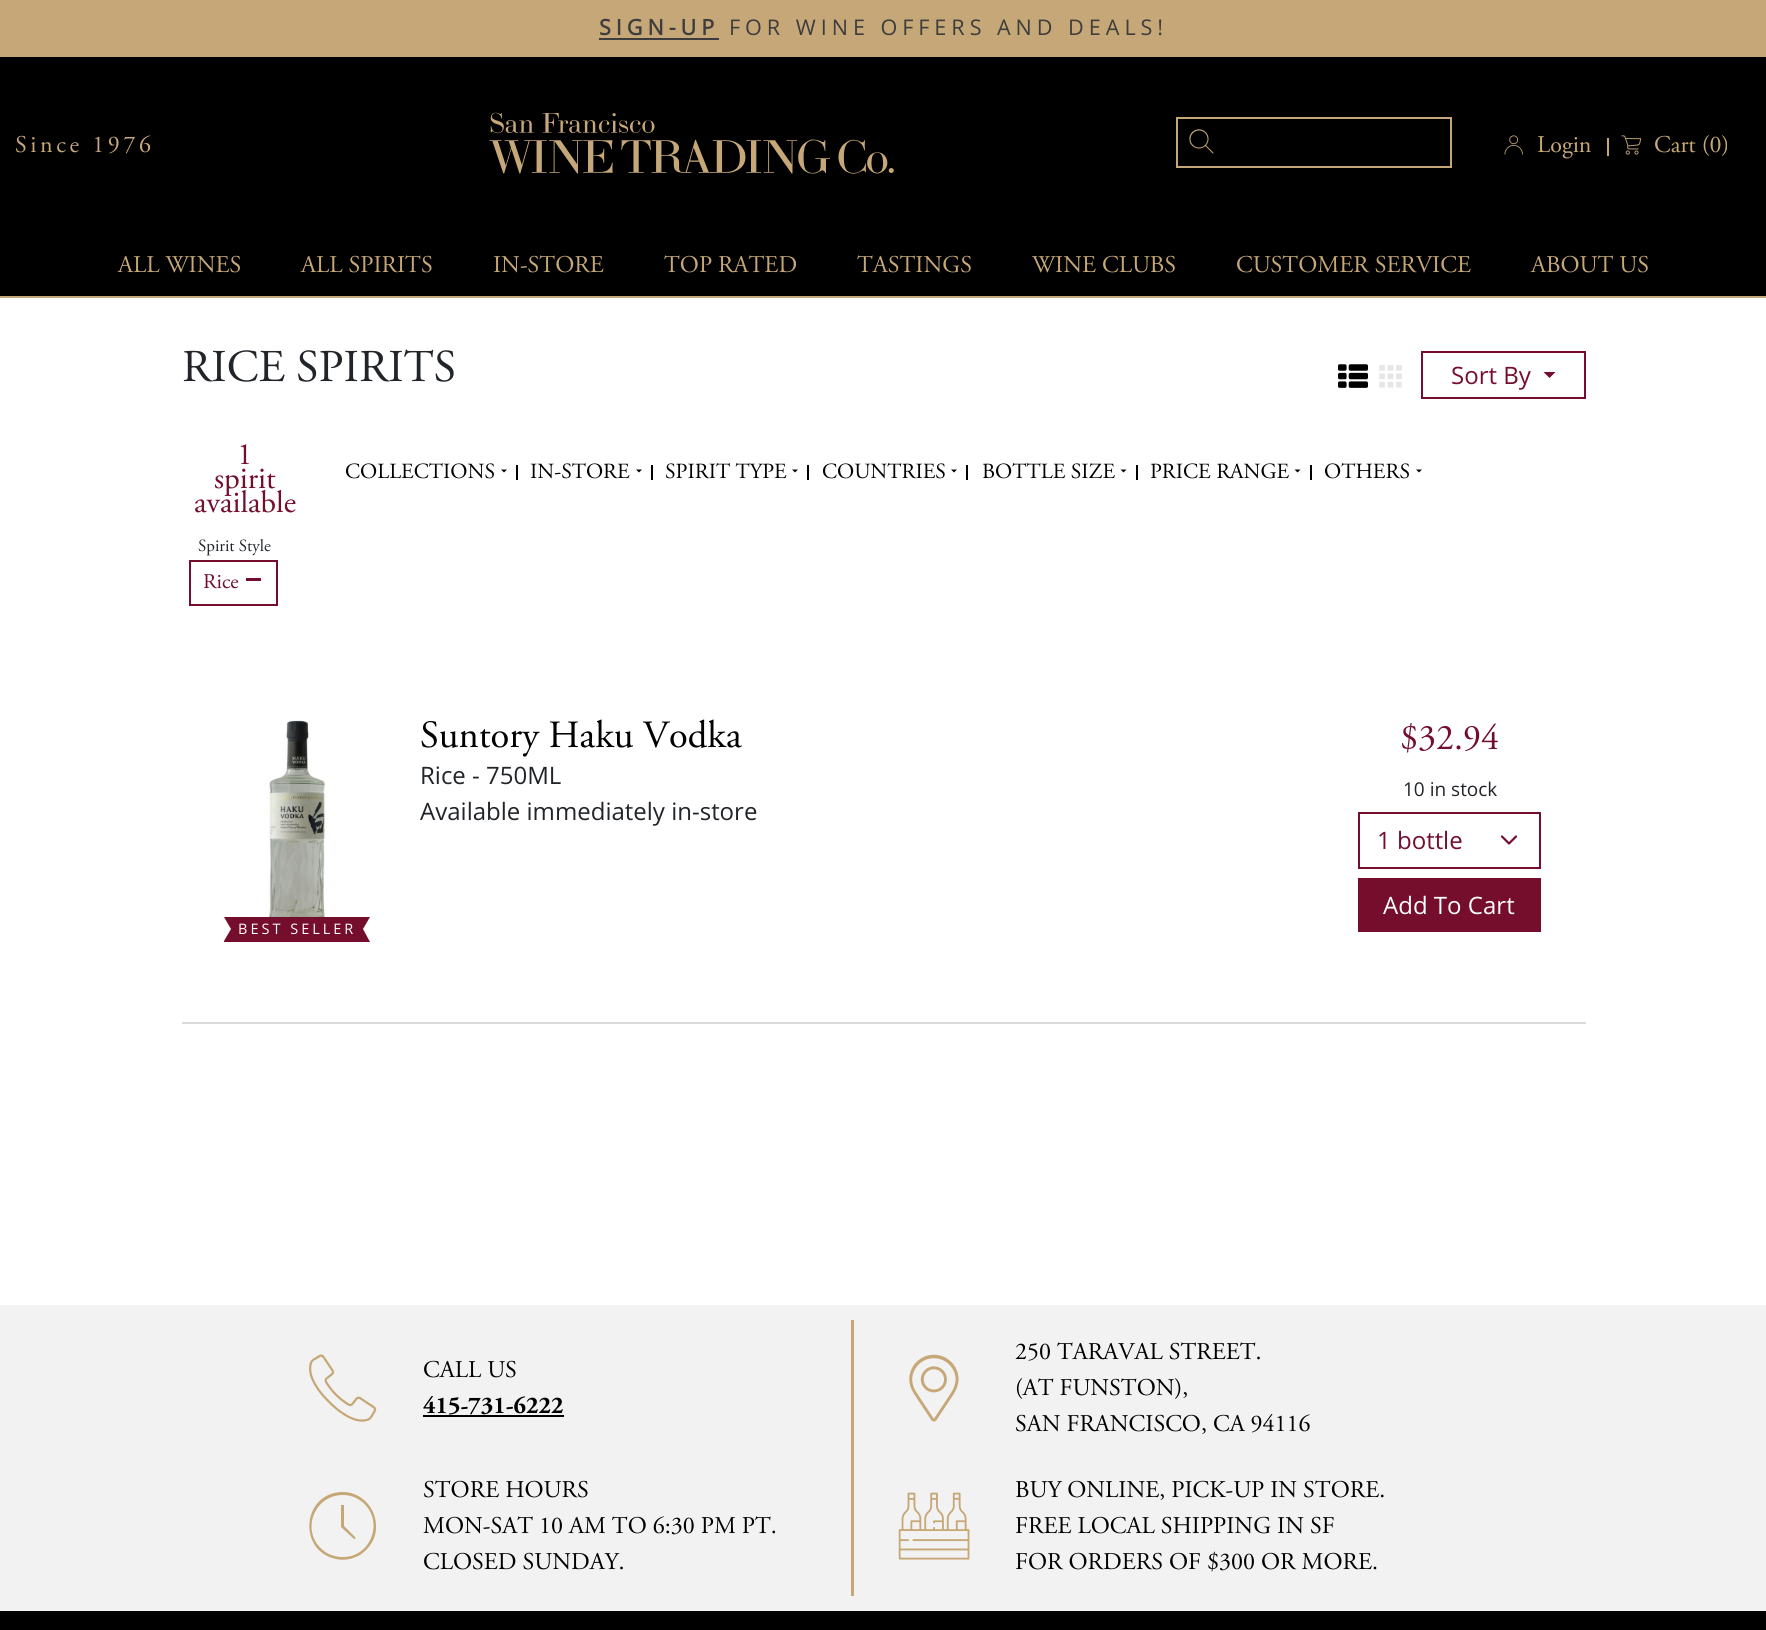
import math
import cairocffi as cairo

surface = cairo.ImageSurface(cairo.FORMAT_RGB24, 1766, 1630)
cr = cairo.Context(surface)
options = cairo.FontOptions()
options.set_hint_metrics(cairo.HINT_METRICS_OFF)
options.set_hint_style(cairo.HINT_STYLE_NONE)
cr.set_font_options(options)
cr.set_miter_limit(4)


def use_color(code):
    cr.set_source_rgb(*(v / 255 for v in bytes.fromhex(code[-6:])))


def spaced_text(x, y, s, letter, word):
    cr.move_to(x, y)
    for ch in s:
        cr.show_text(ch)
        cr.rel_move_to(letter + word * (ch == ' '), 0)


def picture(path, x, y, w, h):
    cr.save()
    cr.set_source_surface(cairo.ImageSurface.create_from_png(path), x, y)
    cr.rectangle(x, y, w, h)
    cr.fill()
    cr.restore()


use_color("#ffffff")
cr.paint()
use_color("#000000")
cr.rectangle(0, 57, 1766, 239)
cr.fill()
use_color("#c6a777")
cr.rectangle(0, 0, 1766, 57)
cr.fill()
cr.select_font_face("Open Sans", cairo.FONT_SLANT_NORMAL, cairo.FONT_WEIGHT_BOLD)
cr.set_font_size(21.6)
use_color("#3d3d3d")
spaced_text(599, 35, "SIGN-UP", 4.95, 0)
cr.rectangle(599, 38, 120, 2)
cr.fill()
cr.select_font_face("Open Sans")
spaced_text(729, 35, "FOR WINE OFFERS AND DEALS!", 4.95, 0)
use_color("#c6a777")
cr.rectangle(0, 296, 1766, 2)
cr.fill()
cr.select_font_face("Adobe Garamond")
cr.set_font_size(24)
spaced_text(15, 152, "Since 1976", 3.6, 0)
picture("img1.png", 489, 112, 405, 62)
picture("img2.png", 1189, 129, 25, 25)
cr.rectangle(1177, 118, 274, 49)
cr.stroke()
picture("img3.png", 1504, 135, 19, 20)
cr.move_to(1537, 152)
cr.show_text("Login")
cr.rectangle(1607, 138, 2, 18)
cr.fill()
picture("img4.png", 1621, 135, 21, 20)
cr.move_to(1654, 152)
cr.show_text("Cart (0)")
cr.move_to(118, 272)
cr.show_text("ALL WINES")
cr.move_to(301, 272)
cr.show_text("ALL SPIRITS")
cr.move_to(493, 272)
cr.show_text("IN-STORE")
cr.move_to(664, 272)
cr.show_text("TOP RATED")
cr.move_to(857, 272)
cr.show_text("TASTINGS")
cr.move_to(1032, 272)
cr.show_text("WINE CLUBS")
cr.move_to(1236, 272)
cr.show_text("CUSTOMER SERVICE")
cr.move_to(1531, 272)
cr.show_text("ABOUT US")
cr.set_font_size(45.5)
use_color("#212529")
cr.move_to(182, 381)
cr.show_text("RICE SPIRITS")
picture("img5.png", 1338, 364, 30, 24)
picture("img6.png", 1379, 365, 23, 23)
cr.rectangle(1422, 352, 163, 46)
use_color("#750d2d")
cr.stroke()
cr.select_font_face("Open Sans")
cr.set_font_size(24)
cr.move_to(1451, 384)
cr.show_text("Sort By")
cr.new_path()
cr.move_to(1543.5, 372)
cr.line_to(1555.5, 372)
cr.line_to(1549.5, 378)
cr.close_path()
cr.fill()
cr.select_font_face("Adobe Garamond")
cr.set_font_size(31)
cr.move_to(237, 464)
cr.show_text("1")
cr.move_to(214, 488)
cr.show_text("spirit")
cr.move_to(194, 512)
cr.show_text("available")
cr.set_font_size(21.6)
use_color("#000000")
cr.move_to(345, 478)
cr.show_text("COLLECTIONS")
cr.new_path()
cr.move_to(501, 469.5)
cr.line_to(507, 469.5)
cr.line_to(504, 472.5)
cr.close_path()
cr.fill()
cr.rectangle(516, 465, 2, 15)
cr.fill()
cr.move_to(530, 478)
cr.show_text("IN-STORE")
cr.new_path()
cr.move_to(636, 469.5)
cr.line_to(642, 469.5)
cr.line_to(639, 472.5)
cr.close_path()
cr.fill()
cr.rectangle(651, 465, 2, 15)
cr.fill()
cr.move_to(665, 478)
cr.show_text("SPIRIT TYPE")
cr.new_path()
cr.move_to(792, 469.5)
cr.line_to(798, 469.5)
cr.line_to(795, 472.5)
cr.close_path()
cr.fill()
cr.rectangle(807, 465, 2, 15)
cr.fill()
cr.move_to(822, 478)
cr.show_text("COUNTRIES")
cr.new_path()
cr.move_to(951, 469.5)
cr.line_to(957, 469.5)
cr.line_to(954, 472.5)
cr.close_path()
cr.fill()
cr.rectangle(966, 465, 2, 15)
cr.fill()
cr.move_to(982, 478)
cr.show_text("BOTTLE SIZE")
cr.new_path()
cr.move_to(1120.5, 469.5)
cr.line_to(1126.5, 469.5)
cr.line_to(1123.5, 472.5)
cr.close_path()
cr.fill()
cr.rectangle(1136, 465, 2, 15)
cr.fill()
cr.move_to(1150, 478)
cr.show_text("PRICE RANGE")
cr.new_path()
cr.move_to(1294.5, 469.5)
cr.line_to(1300.5, 469.5)
cr.line_to(1297.5, 472.5)
cr.close_path()
cr.fill()
cr.rectangle(1310, 465, 2, 15)
cr.fill()
cr.move_to(1324, 478)
cr.show_text("OTHERS")
cr.new_path()
cr.move_to(1416, 469.5)
cr.line_to(1422, 469.5)
cr.line_to(1419, 472.5)
cr.close_path()
cr.fill()
cr.set_font_size(17)
use_color("#212529")
cr.move_to(198, 551)
cr.show_text("Spirit Style")
cr.rectangle(190, 561, 87, 44)
use_color("#750d2d")
cr.stroke()
cr.set_font_size(21)
cr.move_to(203, 588)
cr.show_text("Rice")
cr.rectangle(246, 578, 15, 3)
cr.fill()
use_color("#d9d9d9")
cr.rectangle(182, 1022, 1404, 2)
cr.fill()
cr.set_font_size(38.5)
use_color("#000000")
cr.move_to(420, 747)
cr.show_text("Suntory Haku Vodka")
cr.select_font_face("Open Sans")
cr.set_font_size(24)
use_color("#212529")
cr.move_to(420, 784)
cr.show_text("Rice - 750ML")
cr.move_to(420, 820)
cr.show_text("Available immediately in-store")
cr.select_font_face("Adobe Garamond")
cr.set_font_size(36)
use_color("#750d2d")
cr.move_to(1400, 749)
cr.show_text("$32.94")
cr.select_font_face("Open Sans")
cr.set_font_size(19)
use_color("#212529")
cr.move_to(1403, 796)
cr.show_text("10 in stock")
cr.new_path()
cr.move_to(1502, 836.5)
cr.line_to(1509, 843.5)
cr.line_to(1516, 836.5)
use_color("#750d2d")
cr.set_line_width(2.2)
cr.set_line_cap(cairo.LINE_CAP_ROUND)
cr.set_line_join(cairo.LINE_JOIN_ROUND)
cr.stroke()
cr.rectangle(1359, 813, 181, 55)
cr.set_line_width(2)
cr.set_line_cap(cairo.LINE_CAP_BUTT)
cr.set_line_join(cairo.LINE_JOIN_MITER)
cr.stroke()
cr.set_font_size(24)
cr.move_to(1377, 849)
cr.show_text("1 bottle")
cr.rectangle(1358, 878, 183, 54)
cr.fill()
use_color("#ffffff")
cr.move_to(1383, 914)
cr.show_text("Add To Cart")
picture("img7.png", 268, 720, 59, 197)
use_color("#750d2d")
cr.new_path()
cr.move_to(224, 917)
cr.line_to(370, 917)
cr.line_to(363, 929)
cr.line_to(370, 942)
cr.line_to(224, 942)
cr.line_to(224, 941)
cr.line_to(231, 929)
cr.close_path()
cr.fill()
cr.set_font_size(14.5)
use_color("#ffffff")
spaced_text(238, 934, "BEST SELLER", 3, 0)
use_color("#f2f2f2")
cr.rectangle(0, 1305, 1766, 306)
cr.fill()
picture("img8.png", 309, 1354, 68, 68)
cr.select_font_face("Adobe Garamond")
cr.set_font_size(24)
use_color("#000000")
cr.move_to(423, 1377)
cr.show_text("CALL US")
cr.select_font_face("Adobe Garamond", cairo.FONT_SLANT_NORMAL, cairo.FONT_WEIGHT_BOLD)
cr.move_to(423, 1413)
cr.show_text("415-731-6222")
cr.rectangle(423, 1415, 141, 2)
cr.fill()
use_color("#c6a777")
cr.rectangle(851, 1320, 3, 276)
cr.fill()
picture("img9.png", 909, 1354, 50, 68)
cr.select_font_face("Adobe Garamond")
use_color("#000000")
cr.move_to(1015, 1359)
cr.show_text("250 TARAVAL STREET.")
cr.move_to(1015, 1395)
cr.show_text("(AT FUNSTON),")
cr.move_to(1015, 1431)
cr.show_text("SAN FRANCISCO, CA 94116")
use_color("#c6a777")
cr.new_path()
cr.move_to(343, 1492)
cr.curve_to(302, 1492, 297, 1551, 336, 1559)
cr.curve_to(344, 1561, 353, 1559, 360, 1555)
cr.curve_to(369, 1549, 376, 1539, 376, 1528)
cr.curve_to(377, 1509, 362, 1492, 343, 1492)
cr.close_path()
cr.move_to(343, 1557)
cr.curve_to(336, 1557, 329, 1555, 324, 1551)
cr.curve_to(300, 1533, 313, 1495, 343, 1495)
cr.curve_to(349, 1495, 356, 1497, 361, 1501)
cr.curve_to(385, 1519, 372, 1557, 343, 1557)
cr.close_path()
cr.move_to(344, 1505)
cr.line_to(341, 1505)
cr.line_to(341, 1527)
cr.line_to(354, 1539)
cr.line_to(356, 1538)
cr.line_to(344, 1526)
cr.close_path()
cr.fill()
use_color("#000000")
cr.move_to(423, 1497)
cr.show_text("STORE HOURS")
cr.move_to(423, 1533)
cr.show_text("MON-SAT 10 AM TO 6:30 PM PT.")
cr.move_to(423, 1569)
cr.show_text("CLOSED SUNDAY.")
picture("img10.png", 898, 1492, 72, 68)
cr.move_to(1015, 1497)
cr.show_text("BUY ONLINE, PICK-UP IN STORE.")
cr.move_to(1015, 1533)
cr.show_text("FREE LOCAL SHIPPING IN SF")
cr.move_to(1015, 1569)
cr.show_text("FOR ORDERS OF $300 OR MORE.")
cr.rectangle(0, 1611, 1766, 19)
cr.fill()
surface.write_to_png("result.png")
